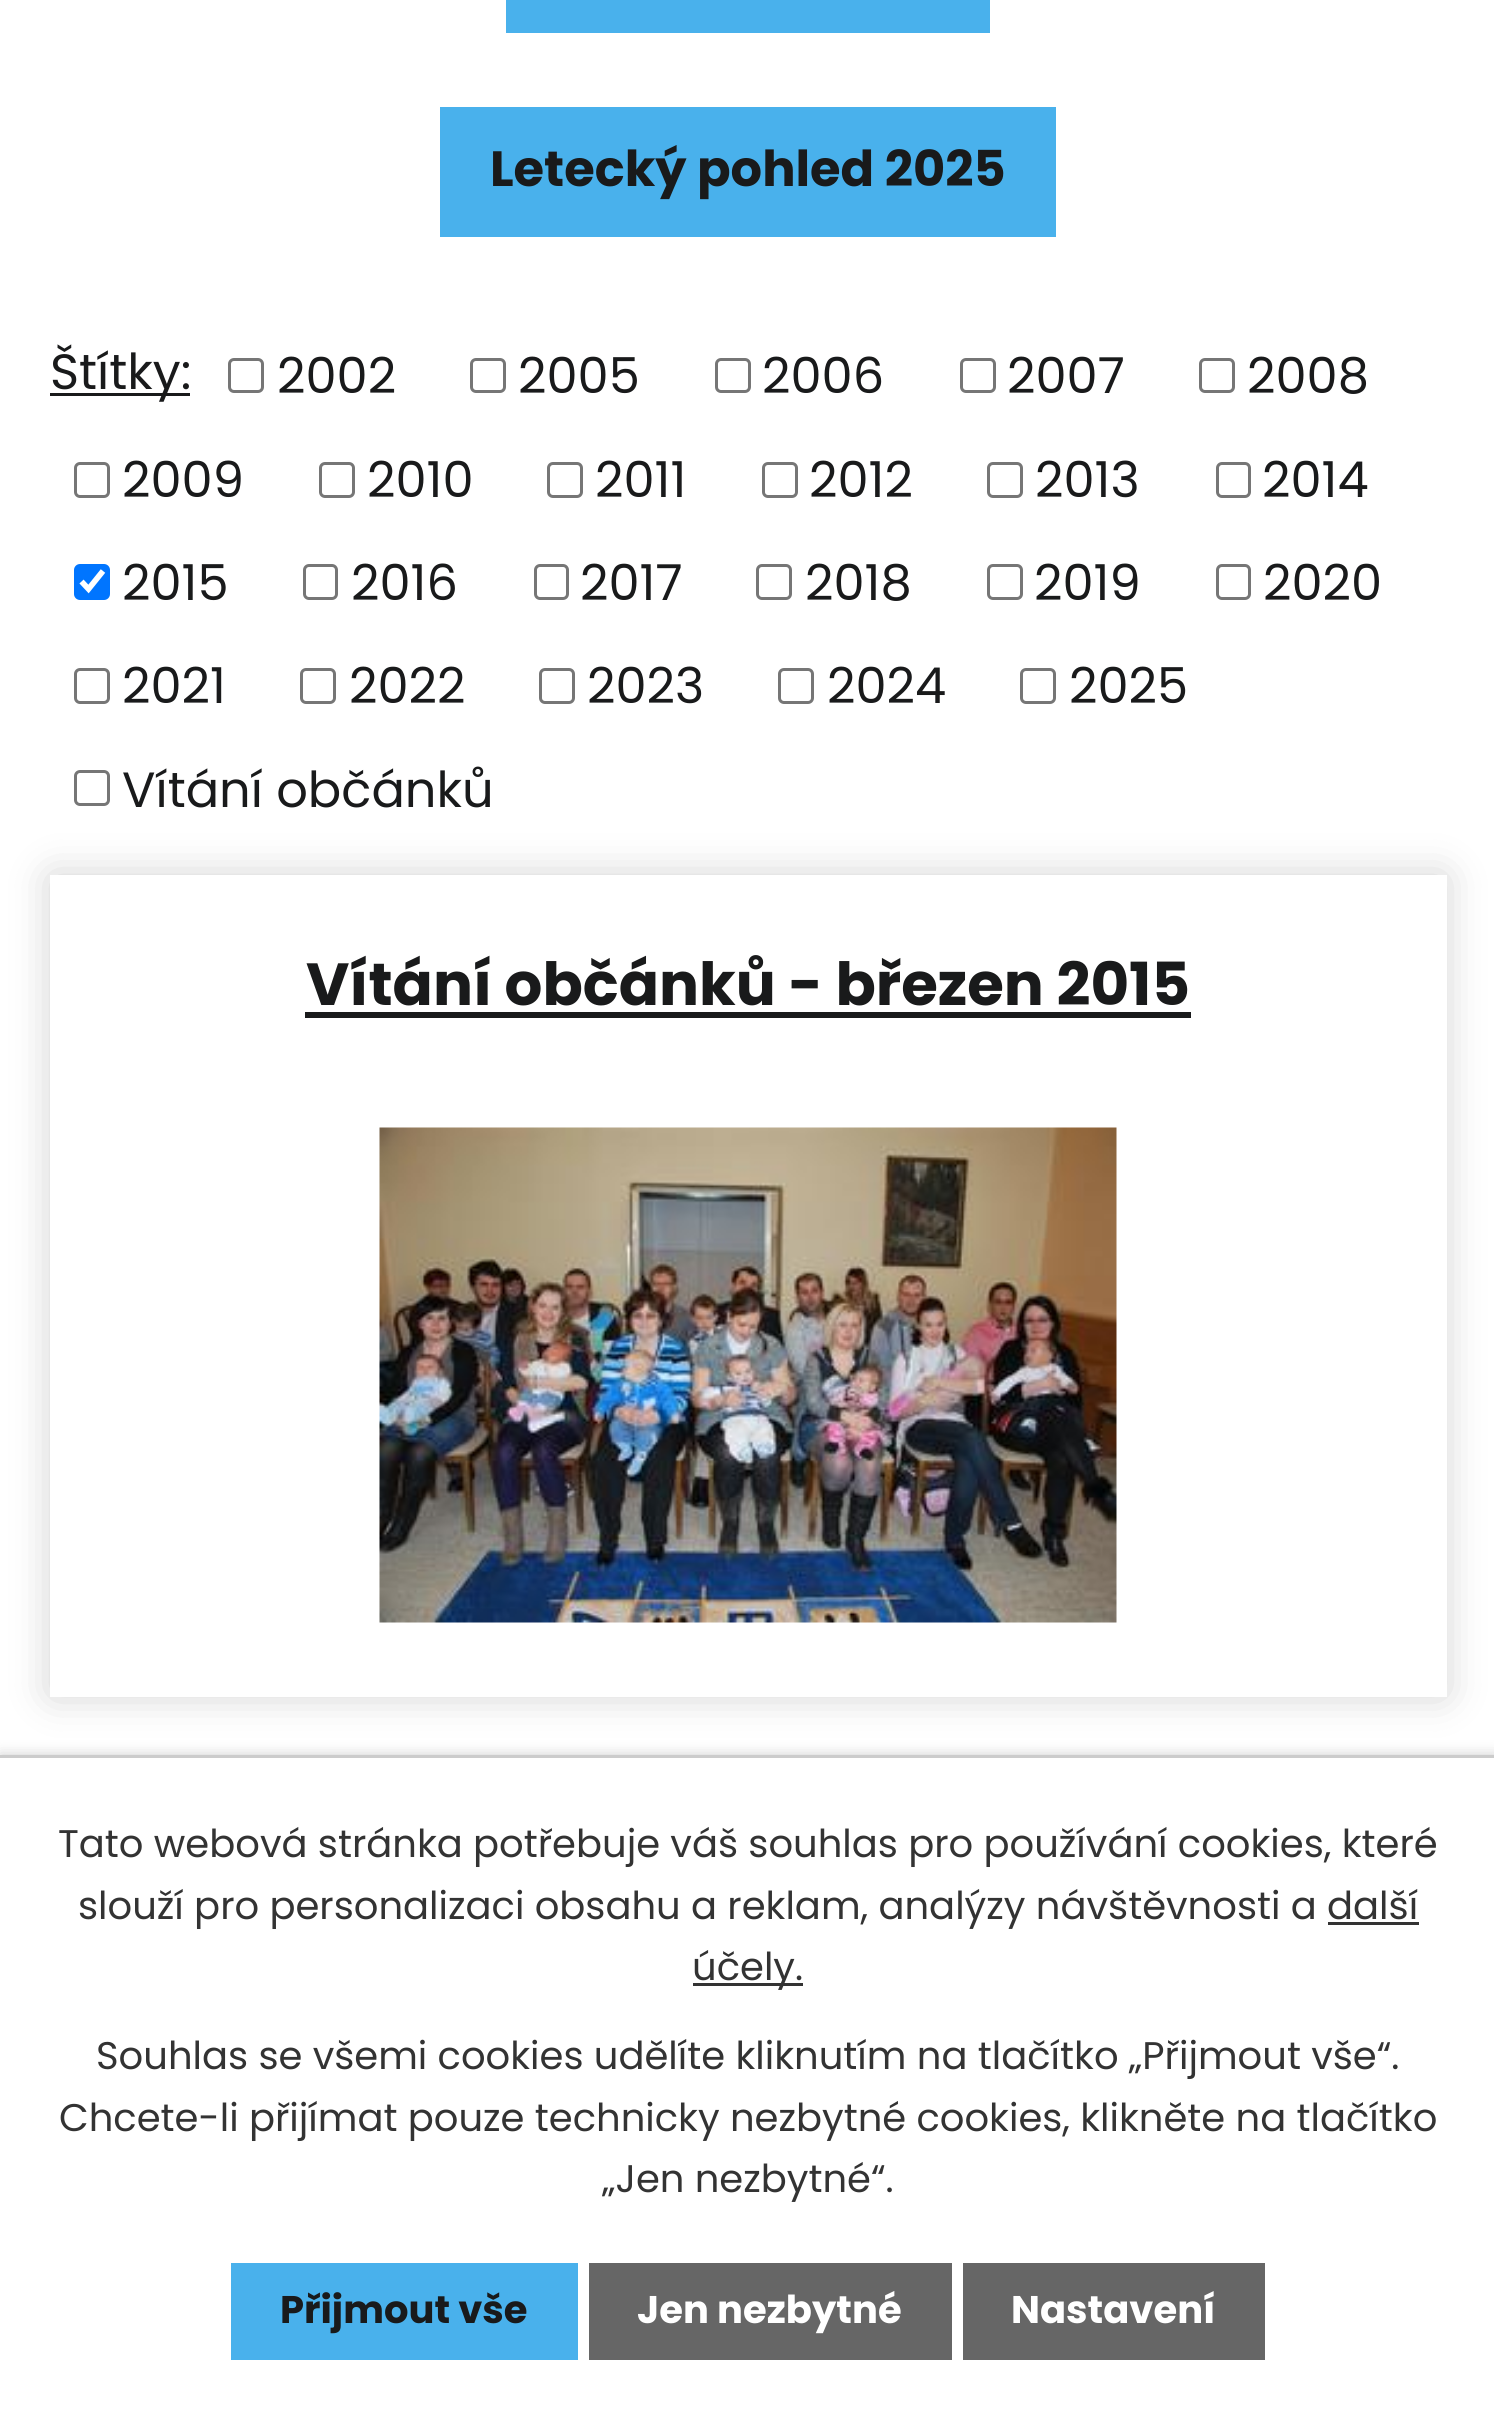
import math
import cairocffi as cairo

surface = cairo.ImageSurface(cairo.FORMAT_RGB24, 1494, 2411)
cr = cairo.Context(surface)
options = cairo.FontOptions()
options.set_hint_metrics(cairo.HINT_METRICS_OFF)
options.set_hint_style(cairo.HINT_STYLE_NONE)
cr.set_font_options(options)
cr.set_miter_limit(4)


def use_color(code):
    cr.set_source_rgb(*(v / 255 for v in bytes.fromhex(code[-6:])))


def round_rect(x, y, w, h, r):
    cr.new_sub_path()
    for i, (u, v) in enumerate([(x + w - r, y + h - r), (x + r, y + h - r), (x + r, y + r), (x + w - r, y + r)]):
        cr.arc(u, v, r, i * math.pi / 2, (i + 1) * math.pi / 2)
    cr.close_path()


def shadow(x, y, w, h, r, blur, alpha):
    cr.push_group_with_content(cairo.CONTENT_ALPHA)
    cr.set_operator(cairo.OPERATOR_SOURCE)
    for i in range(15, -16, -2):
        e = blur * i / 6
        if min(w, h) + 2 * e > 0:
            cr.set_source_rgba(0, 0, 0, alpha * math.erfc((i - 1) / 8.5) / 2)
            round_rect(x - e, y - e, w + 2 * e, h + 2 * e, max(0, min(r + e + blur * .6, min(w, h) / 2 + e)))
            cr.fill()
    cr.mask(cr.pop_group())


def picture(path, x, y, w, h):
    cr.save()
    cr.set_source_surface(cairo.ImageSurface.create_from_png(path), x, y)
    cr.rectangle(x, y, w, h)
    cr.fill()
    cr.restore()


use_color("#ffffff")
cr.paint()
use_color("#49b1ec")
cr.rectangle(506, 0, 484, 33)
cr.fill()
cr.rectangle(440, 107, 616, 130)
cr.fill()
cr.select_font_face("Poppins", cairo.FONT_SLANT_NORMAL, cairo.FONT_WEIGHT_BOLD)
cr.set_font_size(49.5)
use_color("#191a1b")
cr.move_to(490, 186)
cr.show_text("Letecký pohled 2025")
cr.rectangle(50, 393, 140, 3)
cr.fill()
cr.select_font_face("Poppins")
cr.move_to(50, 389)
cr.show_text("Štítky:")
round_rect(229.5, 359.5, 33, 32, 4.5)
use_color("#767676")
cr.set_line_width(3)
cr.stroke()
use_color("#191a1b")
cr.move_to(277, 393)
cr.show_text("2002")
round_rect(471.5, 359.5, 33, 32, 4.5)
use_color("#767676")
cr.stroke()
use_color("#191a1b")
cr.move_to(518, 393)
cr.show_text("2005")
round_rect(716.5, 359.5, 33, 32, 4.5)
use_color("#767676")
cr.stroke()
use_color("#191a1b")
cr.move_to(762, 393)
cr.show_text("2006")
round_rect(961.5, 359.5, 33, 32, 4.5)
use_color("#767676")
cr.stroke()
use_color("#191a1b")
cr.move_to(1007, 393)
cr.show_text("2007")
round_rect(1200.5, 359.5, 33, 32, 4.5)
use_color("#767676")
cr.stroke()
use_color("#191a1b")
cr.move_to(1247, 393)
cr.show_text("2008")
round_rect(75.5, 463.5, 33, 33, 4.5)
use_color("#767676")
cr.stroke()
use_color("#191a1b")
cr.move_to(122, 497)
cr.show_text("2009")
round_rect(320.5, 463.5, 33, 33, 4.5)
use_color("#767676")
cr.stroke()
use_color("#191a1b")
cr.move_to(367, 497)
cr.show_text("2010")
round_rect(548.5, 463.5, 33, 33, 4.5)
use_color("#767676")
cr.stroke()
use_color("#191a1b")
cr.move_to(595, 497)
cr.show_text("2011")
round_rect(763.5, 463.5, 33, 33, 4.5)
use_color("#767676")
cr.stroke()
use_color("#191a1b")
cr.move_to(809, 497)
cr.show_text("2012")
round_rect(988.5, 463.5, 33, 33, 4.5)
use_color("#767676")
cr.stroke()
use_color("#191a1b")
cr.move_to(1035, 497)
cr.show_text("2013")
round_rect(1217.5, 463.5, 32, 33, 4.5)
use_color("#767676")
cr.stroke()
use_color("#191a1b")
cr.move_to(1262, 497)
cr.show_text("2014")
use_color("#0075ff")
round_rect(74, 564, 36, 36, 6)
cr.fill()
cr.new_path()
cr.move_to(81.5, 581.5)
cr.line_to(88.5, 589)
cr.line_to(103, 571)
use_color("#ffffff")
cr.set_line_width(5.7)
cr.stroke()
use_color("#191a1b")
cr.move_to(122, 600)
cr.show_text("2015")
round_rect(304.5, 565.5, 32, 33, 4.5)
use_color("#767676")
cr.set_line_width(3)
cr.stroke()
use_color("#191a1b")
cr.move_to(351, 600)
cr.show_text("2016")
round_rect(535.5, 565.5, 32, 33, 4.5)
use_color("#767676")
cr.stroke()
use_color("#191a1b")
cr.move_to(580, 600)
cr.show_text("2017")
round_rect(757.5, 565.5, 33, 33, 4.5)
use_color("#767676")
cr.stroke()
use_color("#191a1b")
cr.move_to(805, 600)
cr.show_text("2018")
round_rect(988.5, 565.5, 33, 33, 4.5)
use_color("#767676")
cr.stroke()
use_color("#191a1b")
cr.move_to(1034, 600)
cr.show_text("2019")
round_rect(1217.5, 565.5, 32, 33, 4.5)
use_color("#767676")
cr.stroke()
use_color("#191a1b")
cr.move_to(1263, 600)
cr.show_text("2020")
round_rect(75.5, 669.5, 33, 33, 4.5)
use_color("#767676")
cr.stroke()
use_color("#191a1b")
cr.move_to(122, 703)
cr.show_text("2021")
round_rect(301.5, 669.5, 33, 33, 4.5)
use_color("#767676")
cr.stroke()
use_color("#191a1b")
cr.move_to(349, 703)
cr.show_text("2022")
round_rect(540.5, 669.5, 33, 33, 4.5)
use_color("#767676")
cr.stroke()
use_color("#191a1b")
cr.move_to(587, 703)
cr.show_text("2023")
round_rect(779.5, 669.5, 33, 33, 4.5)
use_color("#767676")
cr.stroke()
use_color("#191a1b")
cr.move_to(827, 703)
cr.show_text("2024")
round_rect(1021.5, 669.5, 33, 33, 4.5)
use_color("#767676")
cr.stroke()
use_color("#191a1b")
cr.move_to(1069, 703)
cr.show_text("2025")
round_rect(75.5, 771.5, 33, 33, 4.5)
use_color("#767676")
cr.stroke()
use_color("#191a1b")
cr.move_to(122, 807)
cr.show_text("Vítání občánků")
use_color("#000000")
shadow(52, 877, 1392, 817, 0, 20.5, 0.2)
use_color("#ffffff")
cr.rectangle(50, 875, 1397, 822)
cr.fill()
cr.select_font_face("Poppins", cairo.FONT_SLANT_NORMAL, cairo.FONT_WEIGHT_BOLD)
cr.set_font_size(59.4)
use_color("#191a1b")
cr.move_to(306, 1005)
cr.show_text("Vítání občánků - březen 2015")
cr.rectangle(305, 1012, 886, 6)
cr.fill()
picture("img1.png", 379, 1127, 738, 496)
use_color("#000000")
shadow(0, 1755, 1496, 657, 0, 7, 0.2)
use_color("#ffffff")
cr.rectangle(0, 1758, 1494, 653)
cr.fill()
use_color("#cccccc")
cr.rectangle(0, 1755, 1494, 3)
cr.fill()
cr.select_font_face("Poppins")
cr.set_font_size(38.5)
use_color("#333333")
cr.move_to(58, 1857)
cr.show_text("Tato webová stránka potřebuje váš souhlas pro používání cookies, které")
cr.move_to(78, 1919)
cr.show_text("slouží pro personalizaci obsahu a reklam, analýzy návštěvnosti a další")
cr.rectangle(693, 1983, 110, 3)
cr.fill()
cr.move_to(692, 1980)
cr.show_text("účely.")
cr.rectangle(1328, 1922, 91, 3)
cr.fill()
cr.move_to(96, 2069)
cr.show_text("Souhlas se všemi cookies udělíte kliknutím na tlačítko „Přijmout vše“.")
cr.move_to(59, 2131)
cr.show_text("Chcete-li přijímat pouze technicky nezbytné cookies, klikněte na tlačítko")
cr.move_to(602, 2192)
cr.show_text("„Jen nezbytné“.")
use_color("#49b1ec")
cr.rectangle(231, 2263, 347, 97)
cr.fill()
cr.select_font_face("Poppins", cairo.FONT_SLANT_NORMAL, cairo.FONT_WEIGHT_BOLD)
use_color("#191a1b")
cr.move_to(280, 2323)
cr.show_text("Přijmout vše")
use_color("#666666")
cr.rectangle(589, 2263, 363, 97)
cr.fill()
use_color("#ffffff")
cr.move_to(637, 2323)
cr.show_text("Jen nezbytné")
use_color("#666666")
cr.rectangle(963, 2263, 302, 97)
cr.fill()
use_color("#ffffff")
cr.move_to(1011, 2323)
cr.show_text("Nastavení")
surface.write_to_png("result.png")
